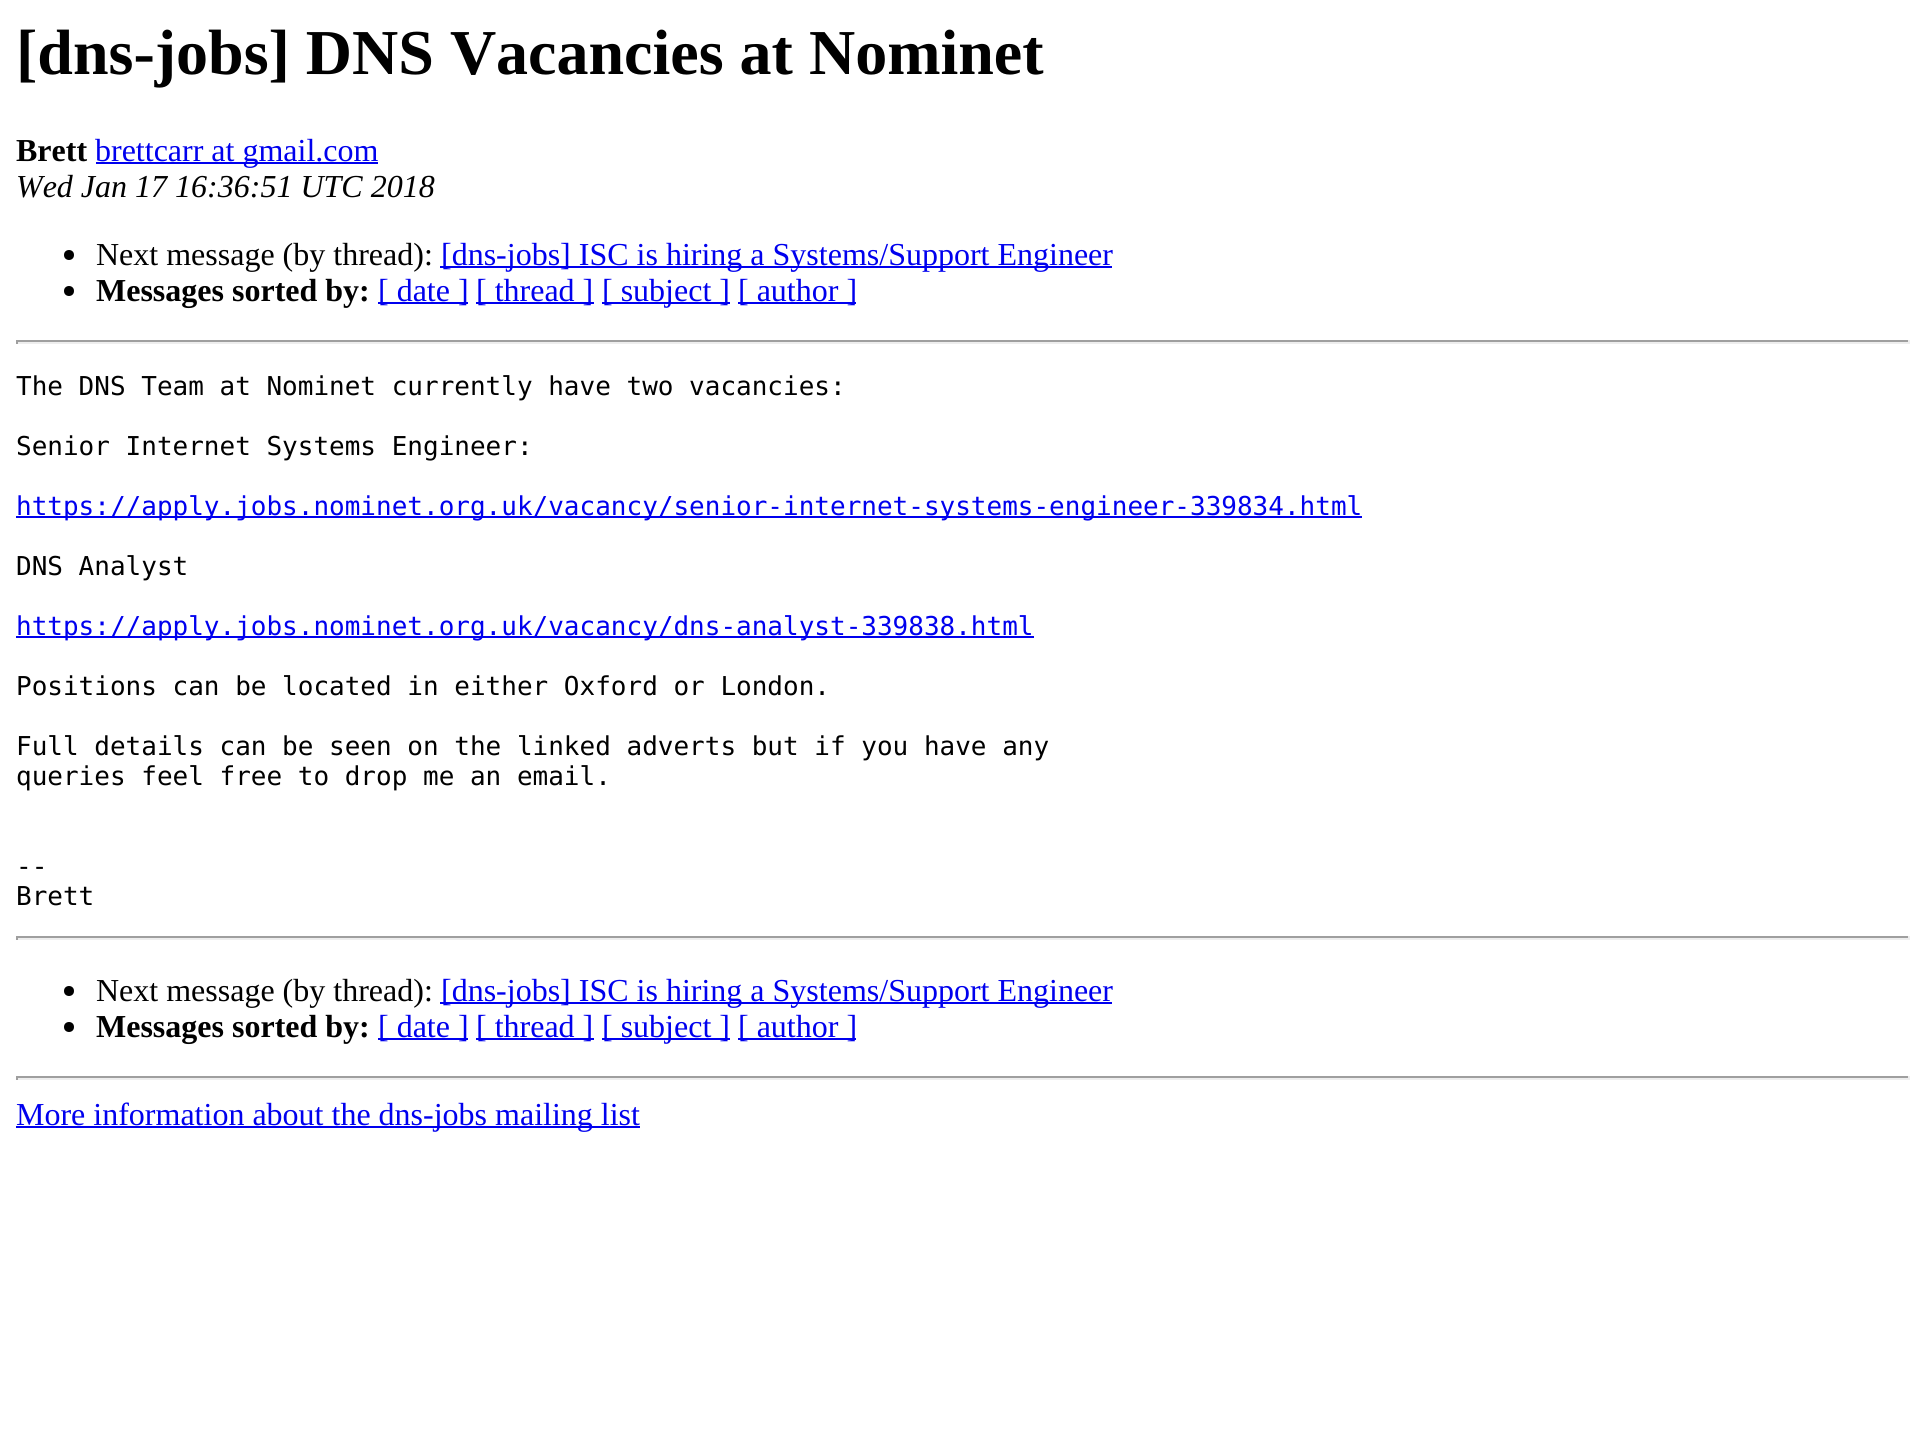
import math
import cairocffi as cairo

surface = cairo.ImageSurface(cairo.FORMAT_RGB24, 1925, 1455)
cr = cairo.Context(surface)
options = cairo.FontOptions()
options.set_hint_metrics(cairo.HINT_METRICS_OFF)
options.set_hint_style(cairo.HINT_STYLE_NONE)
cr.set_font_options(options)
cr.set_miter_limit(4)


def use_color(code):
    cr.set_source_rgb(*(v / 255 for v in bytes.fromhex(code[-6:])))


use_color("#ffffff")
cr.paint()
cr.select_font_face("Liberation Serif", cairo.FONT_SLANT_NORMAL, cairo.FONT_WEIGHT_BOLD)
cr.set_font_size(64)
use_color("#000000")
cr.move_to(16, 74)
cr.show_text("[dns-jobs] DNS Vacancies at Nominet")
cr.set_font_size(32)
cr.move_to(16, 161)
cr.show_text("Brett")
use_color("#0000ee")
cr.rectangle(96, 162, 282, 2)
cr.fill()
cr.select_font_face("Liberation Serif")
cr.move_to(95, 161)
cr.show_text("brettcarr at gmail.com")
cr.select_font_face("Liberation Serif", cairo.FONT_SLANT_ITALIC)
use_color("#000000")
cr.move_to(16, 197)
cr.show_text("Wed Jan 17 16:36:51 UTC 2018")
cr.new_path()
cr.arc(69, 255, 5, 0, 2 * math.pi)
cr.fill()
cr.select_font_face("Liberation Serif")
cr.move_to(96, 265)
cr.show_text("Next message (by thread):")
use_color("#0000ee")
cr.rectangle(440, 266, 672, 2)
cr.fill()
cr.move_to(441, 265)
cr.show_text("[dns-jobs] ISC is hiring a Systems/Support Engineer")
use_color("#000000")
cr.new_path()
cr.arc(69, 291, 5, 0, 2 * math.pi)
cr.fill()
cr.select_font_face("Liberation Serif", cairo.FONT_SLANT_NORMAL, cairo.FONT_WEIGHT_BOLD)
cr.move_to(96, 301)
cr.show_text("Messages sorted by:")
use_color("#0000ee")
cr.rectangle(378, 302, 90, 2)
cr.fill()
cr.select_font_face("Liberation Serif")
cr.move_to(378, 301)
cr.show_text("[ date ]")
cr.rectangle(476, 302, 118, 2)
cr.fill()
cr.move_to(476, 301)
cr.show_text("[ thread ]")
cr.rectangle(602, 302, 128, 2)
cr.fill()
cr.move_to(602, 301)
cr.show_text("[ subject ]")
cr.rectangle(738, 302, 118, 2)
cr.fill()
cr.move_to(738, 301)
cr.show_text("[ author ]")
use_color("#9f9f9f")
cr.rectangle(16, 340, 1894, 2)
cr.fill()
use_color("#eeeeee")
cr.rectangle(1908, 340, 2, 4)
cr.fill()
cr.rectangle(16, 342, 1894, 2)
cr.fill()
use_color("#9f9f9f")
cr.rectangle(16, 340, 2, 4)
cr.fill()
cr.select_font_face("DejaVu Sans Mono")
cr.set_font_size(26)
use_color("#000000")
cr.move_to(16, 395)
cr.show_text("The DNS Team at Nominet currently have two vacancies:")
cr.move_to(16, 455)
cr.show_text("Senior Internet Systems Engineer:")
use_color("#0000ee")
cr.rectangle(16, 516, 1346, 2)
cr.fill()
cr.move_to(16, 515)
cr.show_text("https://apply.jobs.nominet.org.uk/vacancy/senior-internet-systems-engineer-339834.html")
use_color("#000000")
cr.move_to(16, 575)
cr.show_text("DNS Analyst")
use_color("#0000ee")
cr.rectangle(16, 636, 1018, 2)
cr.fill()
cr.move_to(16, 635)
cr.show_text("https://apply.jobs.nominet.org.uk/vacancy/dns-analyst-339838.html")
use_color("#000000")
cr.move_to(16, 695)
cr.show_text("Positions can be located in either Oxford or London.")
cr.move_to(16, 755)
cr.show_text("Full details can be seen on the linked adverts but if you have any")
cr.move_to(16, 785)
cr.show_text("queries feel free to drop me an email.")
cr.move_to(16, 875)
cr.show_text("--")
cr.move_to(16, 905)
cr.show_text("Brett")
use_color("#9f9f9f")
cr.rectangle(16, 936, 1894, 2)
cr.fill()
use_color("#eeeeee")
cr.rectangle(1908, 936, 2, 4)
cr.fill()
cr.rectangle(16, 938, 1894, 2)
cr.fill()
use_color("#9f9f9f")
cr.rectangle(16, 936, 2, 4)
cr.fill()
use_color("#000000")
cr.arc(69, 991, 5, 0, 2 * math.pi)
cr.fill()
cr.select_font_face("Liberation Serif")
cr.set_font_size(32)
cr.move_to(96, 1001)
cr.show_text("Next message (by thread):")
use_color("#0000ee")
cr.rectangle(440, 1002, 672, 2)
cr.fill()
cr.move_to(441, 1001)
cr.show_text("[dns-jobs] ISC is hiring a Systems/Support Engineer")
use_color("#000000")
cr.new_path()
cr.arc(69, 1027, 5, 0, 2 * math.pi)
cr.fill()
cr.select_font_face("Liberation Serif", cairo.FONT_SLANT_NORMAL, cairo.FONT_WEIGHT_BOLD)
cr.move_to(96, 1037)
cr.show_text("Messages sorted by:")
use_color("#0000ee")
cr.rectangle(378, 1038, 90, 2)
cr.fill()
cr.select_font_face("Liberation Serif")
cr.move_to(378, 1037)
cr.show_text("[ date ]")
cr.rectangle(476, 1038, 118, 2)
cr.fill()
cr.move_to(476, 1037)
cr.show_text("[ thread ]")
cr.rectangle(602, 1038, 128, 2)
cr.fill()
cr.move_to(602, 1037)
cr.show_text("[ subject ]")
cr.rectangle(738, 1038, 118, 2)
cr.fill()
cr.move_to(738, 1037)
cr.show_text("[ author ]")
use_color("#9f9f9f")
cr.rectangle(16, 1076, 1894, 2)
cr.fill()
use_color("#eeeeee")
cr.rectangle(1908, 1076, 2, 4)
cr.fill()
cr.rectangle(16, 1078, 1894, 2)
cr.fill()
use_color("#9f9f9f")
cr.rectangle(16, 1076, 2, 4)
cr.fill()
use_color("#0000ee")
cr.rectangle(16, 1126, 624, 2)
cr.fill()
cr.move_to(16, 1125)
cr.show_text("More information about the dns-jobs mailing list")
surface.write_to_png("result.png")
